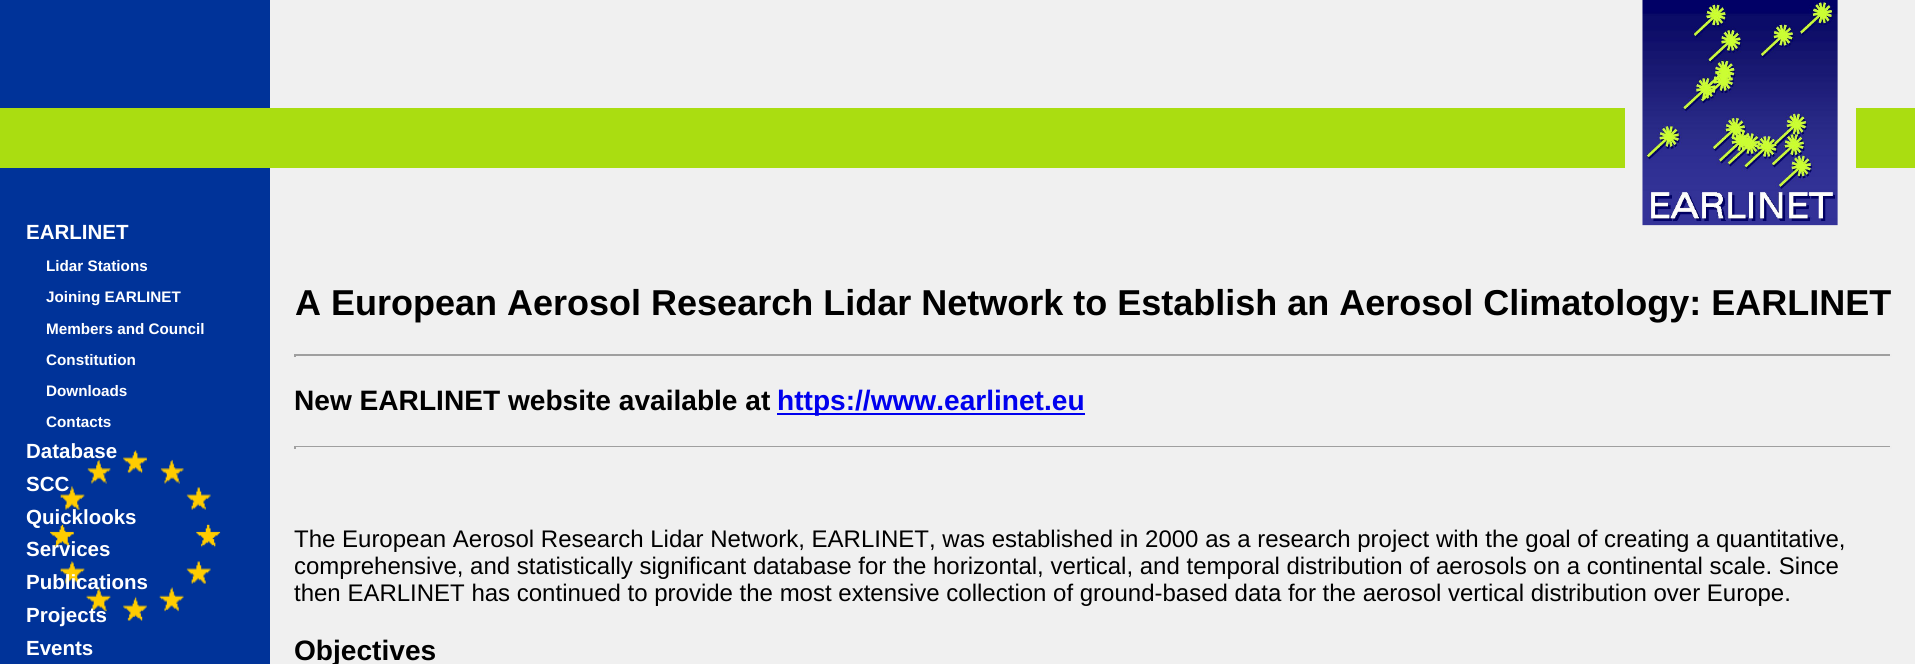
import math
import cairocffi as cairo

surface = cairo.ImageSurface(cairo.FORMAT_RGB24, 1915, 664)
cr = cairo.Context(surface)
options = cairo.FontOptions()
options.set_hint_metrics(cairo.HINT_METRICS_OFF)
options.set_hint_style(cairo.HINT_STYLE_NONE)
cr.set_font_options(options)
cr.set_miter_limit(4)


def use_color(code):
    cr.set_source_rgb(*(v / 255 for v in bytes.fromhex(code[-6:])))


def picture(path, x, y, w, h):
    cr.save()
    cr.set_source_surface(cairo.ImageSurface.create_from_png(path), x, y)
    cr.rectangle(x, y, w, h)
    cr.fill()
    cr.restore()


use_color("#f0f0f0")
cr.paint()
use_color("#aadd11")
cr.rectangle(270, 108, 1645, 60)
cr.fill()
use_color("#f0f0f0")
cr.rectangle(1625, 108, 231, 60)
cr.fill()
picture("img1.png", 1642, 0, 196, 226)
use_color("#003399")
cr.rectangle(0, 0, 270, 664)
cr.fill()
use_color("#aadd11")
cr.rectangle(0, 108, 270, 60)
cr.fill()
cr.select_font_face("Liberation Sans", cairo.FONT_SLANT_NORMAL, cairo.FONT_WEIGHT_BOLD)
cr.set_font_size(20.5)
use_color("#ffffff")
cr.move_to(26, 239)
cr.show_text("EARLINET")
cr.set_font_size(15.25)
cr.move_to(46, 271)
cr.show_text("Lidar Stations")
cr.move_to(46, 302)
cr.show_text("Joining EARLINET")
cr.move_to(46, 334)
cr.show_text("Members and Council")
cr.move_to(46, 365)
cr.show_text("Constitution")
cr.move_to(46, 396)
cr.show_text("Downloads")
cr.move_to(46, 427)
cr.show_text("Contacts")
picture("img2.png", 50, 450, 171, 171)
cr.set_font_size(20.5)
cr.move_to(26, 458)
cr.show_text("Database")
cr.move_to(26, 491)
cr.show_text("SCC")
cr.move_to(26, 524)
cr.show_text("Quicklooks")
cr.move_to(26, 556)
cr.show_text("Services")
cr.move_to(26, 589)
cr.show_text("Publications")
cr.move_to(26, 622)
cr.show_text("Projects")
cr.move_to(26, 655)
cr.show_text("Events")
cr.set_font_size(36)
use_color("#000000")
cr.move_to(295, 315)
cr.show_text("A European Aerosol Research Lidar Network to Establish an Aerosol Climatology: EARLINET")
use_color("#9f9f9f")
cr.rectangle(294, 354, 1598, 2)
cr.fill()
use_color("#eeeeee")
cr.rectangle(1890, 354, 2, 3)
cr.fill()
use_color("#9f9f9f")
cr.rectangle(294, 354, 2, 3)
cr.fill()
cr.set_font_size(28.1)
use_color("#000000")
cr.move_to(294, 410)
cr.show_text("New EARLINET website available at")
use_color("#0000ee")
cr.rectangle(777, 413, 308, 2)
cr.fill()
cr.move_to(777, 410)
cr.show_text("https://www.earlinet.eu")
use_color("#9f9f9f")
cr.rectangle(294, 446, 1598, 1)
cr.fill()
use_color("#eeeeee")
cr.rectangle(1890, 446, 2, 3)
cr.fill()
use_color("#9f9f9f")
cr.rectangle(294, 446, 2, 3)
cr.fill()
cr.select_font_face("Liberation Sans")
cr.set_font_size(24)
use_color("#000000")
cr.move_to(294, 547)
cr.show_text("The European Aerosol Research Lidar Network, EARLINET, was established in 2000 as a research project with the goal of creating a quantitative,")
cr.move_to(294, 574)
cr.show_text("comprehensive, and statistically significant database for the horizontal, vertical, and temporal distribution of aerosols on a continental scale. Since")
cr.move_to(294, 601)
cr.show_text("then EARLINET has continued to provide the most extensive collection of ground-based data for the aerosol vertical distribution over Europe.")
cr.select_font_face("Liberation Sans", cairo.FONT_SLANT_NORMAL, cairo.FONT_WEIGHT_BOLD)
cr.set_font_size(28.1)
cr.move_to(294, 660)
cr.show_text("Objectives")
surface.write_to_png("result.png")
